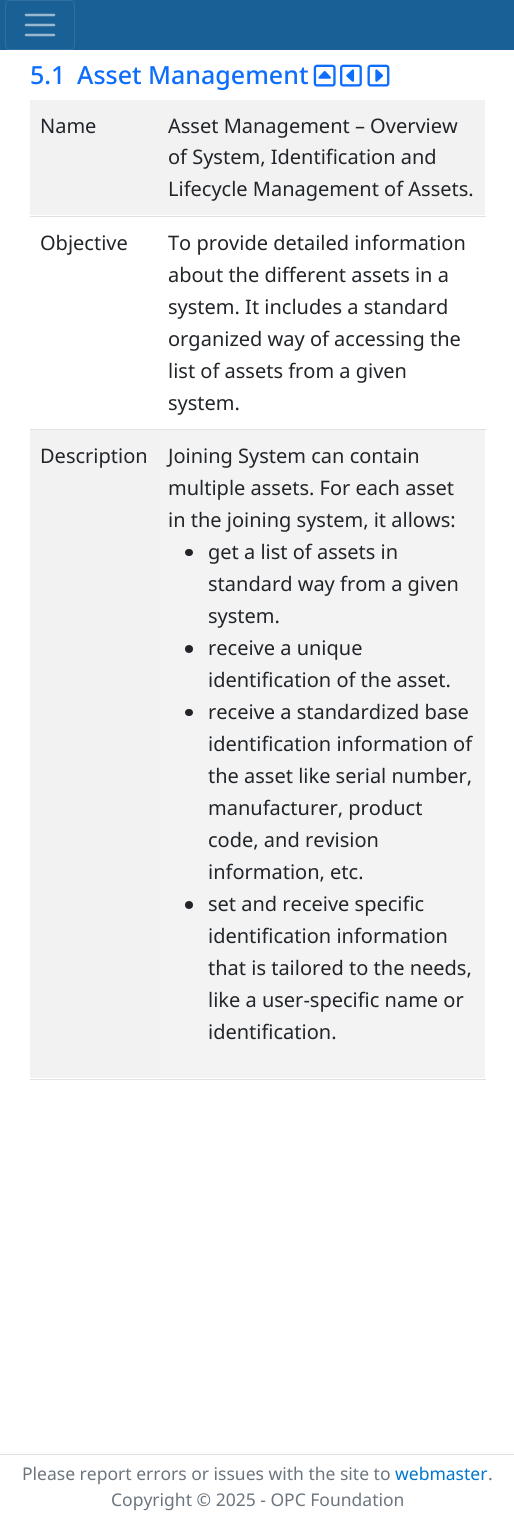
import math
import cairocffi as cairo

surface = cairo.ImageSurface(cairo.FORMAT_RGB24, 514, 1517)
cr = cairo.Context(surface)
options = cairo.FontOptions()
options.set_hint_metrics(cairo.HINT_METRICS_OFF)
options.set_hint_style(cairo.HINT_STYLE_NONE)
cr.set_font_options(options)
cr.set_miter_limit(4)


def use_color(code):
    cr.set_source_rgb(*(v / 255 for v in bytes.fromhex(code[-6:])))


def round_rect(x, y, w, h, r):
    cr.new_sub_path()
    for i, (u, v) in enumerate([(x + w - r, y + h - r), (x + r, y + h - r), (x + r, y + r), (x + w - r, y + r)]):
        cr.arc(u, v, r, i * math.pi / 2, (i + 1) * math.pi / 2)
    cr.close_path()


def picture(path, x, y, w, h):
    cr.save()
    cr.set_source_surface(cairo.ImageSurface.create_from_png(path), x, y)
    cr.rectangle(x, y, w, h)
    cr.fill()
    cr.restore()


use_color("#ffffff")
cr.paint()
use_color("#196096")
cr.rectangle(0, 0, 514, 50)
cr.fill()
round_rect(5.5, 0.5, 69, 49, 4.5)
use_color("#3070a1")
cr.set_line_width(1)
cr.stroke()
cr.new_path()
cr.move_to(26, 15)
cr.line_to(54, 15)
cr.move_to(26, 25)
cr.line_to(54, 25)
cr.move_to(26, 35)
cr.line_to(54, 35)
use_color("#98b7d0")
cr.set_line_width(2.5)
cr.set_line_cap(cairo.LINE_CAP_ROUND)
cr.stroke()
cr.select_font_face("Noto Sans Medium")
cr.set_font_size(25)
use_color("#0d6efd")
cr.move_to(30, 84)
cr.show_text("5.1")
cr.move_to(77, 84)
cr.show_text("Asset Management")
picture("img1.png", 313, 64, 23, 23)
picture("img2.png", 340, 64, 22, 23)
picture("img3.png", 367, 64, 23, 23)
use_color("#f2f2f2")
cr.rectangle(30, 100, 455, 115)
cr.fill()
cr.select_font_face("Noto Sans")
cr.set_font_size(20)
use_color("#212529")
cr.move_to(40, 133)
cr.show_text("Name")
use_color("#dee2e6")
cr.rectangle(30, 216, 456, 1)
cr.fill()
use_color("#212529")
cr.move_to(168, 133)
cr.show_text("Asset Management – Overview")
cr.move_to(168, 164)
cr.show_text("of System, Identification and")
cr.move_to(168, 196)
cr.show_text("Lifecycle Management of Assets.")
cr.move_to(40, 250)
cr.show_text("Objective")
use_color("#dee2e6")
cr.rectangle(30, 429, 456, 1)
cr.fill()
use_color("#212529")
cr.move_to(168, 250)
cr.show_text("To provide detailed information")
cr.move_to(168, 282)
cr.show_text("about the different assets in a")
cr.move_to(168, 314)
cr.show_text("system. It includes a standard")
cr.move_to(168, 346)
cr.show_text("organized way of accessing the")
cr.move_to(168, 378)
cr.show_text("list of assets from a given")
cr.move_to(168, 410)
cr.show_text("system.")
use_color("#f2f2f2")
cr.rectangle(30, 430, 128, 648)
cr.fill()
use_color("#212529")
cr.move_to(40, 463)
cr.show_text("Description")
use_color("#f3f3f3")
cr.rectangle(158, 430, 327, 648)
cr.fill()
use_color("#dee2e6")
cr.rectangle(30, 1079, 456, 1)
cr.fill()
use_color("#212529")
cr.move_to(168, 463)
cr.show_text("Joining System can contain")
cr.move_to(168, 495)
cr.show_text("multiple assets. For each asset")
cr.move_to(168, 527)
cr.show_text("in the joining system, it allows:")
round_rect(185, 549, 8, 7, 3.5)
cr.fill()
cr.move_to(208, 559)
cr.show_text("get a list of assets in")
cr.move_to(208, 591)
cr.show_text("standard way from a given")
cr.move_to(208, 623)
cr.show_text("system.")
cr.new_path()
cr.arc(189, 649, 4, 0, 2 * math.pi)
cr.fill()
cr.move_to(208, 655)
cr.show_text("receive a unique")
cr.move_to(208, 687)
cr.show_text("identification of the asset.")
round_rect(185, 709, 8, 7, 3.5)
cr.fill()
cr.move_to(208, 719)
cr.show_text("receive a standardized base")
cr.move_to(208, 751)
cr.show_text("identification information of")
cr.move_to(208, 783)
cr.show_text("the asset like serial number,")
cr.move_to(208, 815)
cr.show_text("manufacturer, product")
cr.move_to(208, 847)
cr.show_text("code, and revision")
cr.move_to(208, 879)
cr.show_text("information, etc.")
cr.new_path()
cr.arc(189, 905, 4, 0, 2 * math.pi)
cr.fill()
cr.move_to(208, 911)
cr.show_text("set and receive specific")
cr.move_to(208, 943)
cr.show_text("identification information")
cr.move_to(208, 975)
cr.show_text("that is tailored to the needs,")
cr.move_to(208, 1007)
cr.show_text("like a user-specific name or")
cr.move_to(208, 1039)
cr.show_text("identification.")
use_color("#dee2e6")
cr.rectangle(0, 1454, 514, 1)
cr.fill()
cr.set_font_size(17.5)
use_color("#6c757d")
cr.move_to(22, 1480)
cr.show_text("Please report errors or issues with the site to")
use_color("#0077cc")
cr.move_to(395, 1480)
cr.show_text("webmaster")
use_color("#6c757d")
cr.move_to(488, 1480)
cr.show_text(".")
cr.move_to(111, 1506)
cr.show_text("Copyright © 2025 - OPC Foundation")
surface.write_to_png("result.png")
